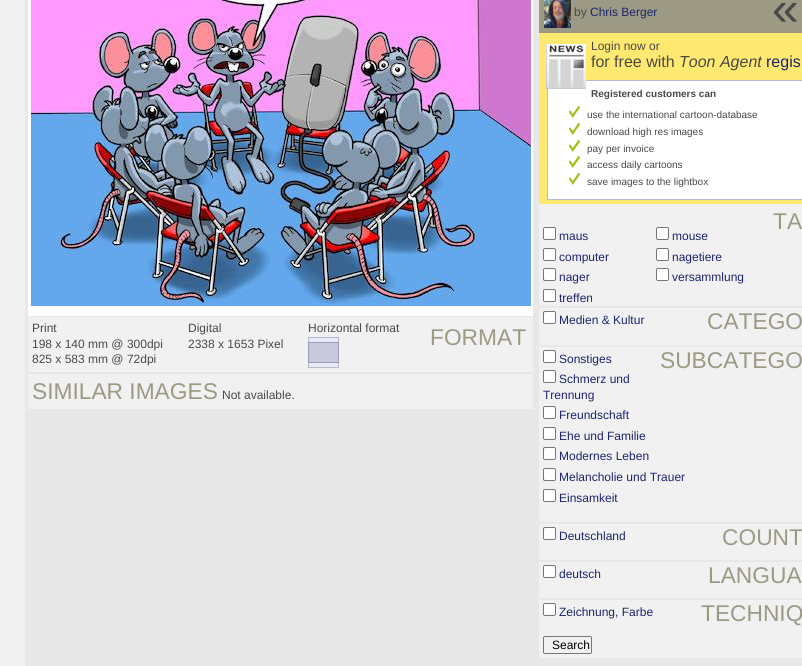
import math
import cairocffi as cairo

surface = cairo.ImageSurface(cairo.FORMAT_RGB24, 802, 666)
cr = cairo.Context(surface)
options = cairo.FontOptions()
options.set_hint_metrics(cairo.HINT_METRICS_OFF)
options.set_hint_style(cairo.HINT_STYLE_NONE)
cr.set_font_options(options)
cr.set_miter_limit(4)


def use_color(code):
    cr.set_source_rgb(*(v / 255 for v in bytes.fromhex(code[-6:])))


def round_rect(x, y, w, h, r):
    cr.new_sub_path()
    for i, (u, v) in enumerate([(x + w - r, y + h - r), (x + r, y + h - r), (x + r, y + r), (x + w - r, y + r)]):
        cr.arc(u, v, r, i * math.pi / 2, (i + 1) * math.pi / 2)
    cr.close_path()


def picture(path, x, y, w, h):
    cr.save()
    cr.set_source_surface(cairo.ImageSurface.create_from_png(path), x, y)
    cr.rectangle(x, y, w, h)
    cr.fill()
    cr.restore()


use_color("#f1f1f1")
cr.paint()
use_color("#e8e8e8")
cr.rectangle(25, 0, 777, 666)
cr.fill()
use_color("#ffffff")
cr.rectangle(28, 0, 505, 316)
cr.fill()
picture("img1.png", 31, 0, 500, 306)
use_color("#f1f1f1")
cr.rectangle(28, 317, 505, 55)
cr.fill()
cr.select_font_face("Liberation Sans")
cr.set_font_size(12)
use_color("#494949")
cr.move_to(32, 332)
cr.show_text("Print")
cr.move_to(32, 348)
cr.show_text("198 x 140 mm @ 300dpi")
cr.move_to(32, 363)
cr.show_text("825 x 583 mm @ 72dpi")
cr.move_to(188, 332)
cr.show_text("Digital")
cr.move_to(188, 348)
cr.show_text("2338 x 1653 Pixel")
cr.move_to(308, 332)
cr.show_text("Horizontal format")
picture("img2.png", 308, 337, 31, 31)
cr.set_font_size(22.75)
use_color("#9c9984")
cr.move_to(430, 345)
cr.show_text("FORMAT")
use_color("#f1f1f1")
cr.rectangle(28, 374, 505, 35)
cr.fill()
use_color("#9c9984")
cr.move_to(32, 399)
cr.show_text("SIMILAR IMAGES")
cr.set_font_size(12)
use_color("#494949")
cr.move_to(222, 399)
cr.show_text("Not available.")
use_color("#9c9984")
cr.rectangle(539, 0, 263, 33)
cr.fill()
picture("img3.png", 544, 0, 27, 28)
use_color("#494949")
cr.move_to(574, 16)
cr.show_text("by")
use_color("#1d246c")
cr.move_to(590, 16)
cr.show_text("Chris Berger")
cr.set_font_size(48)
use_color("#494949")
cr.move_to(772, 25)
cr.show_text("«")
use_color("#ffe970")
cr.rectangle(539, 33, 263, 171)
cr.fill()
use_color("#ffffff")
cr.rectangle(547.5, 80.5, 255, 119)
cr.fill_preserve()
use_color("#b9bbd0")
cr.set_line_width(1)
cr.stroke()
picture("img4.png", 546, 44, 40, 45)
cr.set_font_size(12)
use_color("#494949")
cr.move_to(591, 50)
cr.show_text("Login now or")
cr.set_font_size(16)
cr.move_to(591, 67)
cr.show_text("for free with")
cr.select_font_face("Liberation Sans", cairo.FONT_SLANT_ITALIC)
cr.move_to(679, 67)
cr.show_text("Toon Agent")
cr.select_font_face("Liberation Sans")
use_color("#1d246c")
cr.move_to(766, 67)
cr.show_text("regis")
cr.select_font_face("Liberation Sans", cairo.FONT_SLANT_NORMAL, cairo.FONT_WEIGHT_BOLD)
cr.set_font_size(10)
use_color("#494949")
cr.move_to(591, 97)
cr.show_text("Registered customers can")
picture("img5.png", 569, 106, 11, 12)
cr.select_font_face("Liberation Sans")
cr.move_to(587, 118)
cr.show_text("use the international cartoon-database")
picture("img5.png", 569, 123, 11, 12)
cr.move_to(587, 135)
cr.show_text("download high res images")
picture("img5.png", 569, 140, 11, 12)
cr.move_to(587, 152)
cr.show_text("pay per invoice")
picture("img5.png", 569, 156, 11, 12)
cr.move_to(587, 168)
cr.show_text("access daily cartoons")
picture("img5.png", 569, 173, 11, 12)
cr.move_to(587, 185)
cr.show_text("save images to the lightbox")
use_color("#f1f1f1")
cr.rectangle(539, 204, 263, 454)
cr.fill()
cr.set_font_size(22.75)
use_color("#9c9984")
cr.move_to(773, 229)
cr.show_text("TA")
use_color("#ffffff")
round_rect(543.5, 227.5, 12, 12, 1.5)
cr.fill_preserve()
use_color("#767676")
cr.stroke()
cr.set_font_size(12)
use_color("#1d246c")
cr.move_to(559, 240)
cr.show_text("maus")
use_color("#ffffff")
round_rect(656.5, 227.5, 12, 12, 1.5)
cr.fill_preserve()
use_color("#767676")
cr.stroke()
use_color("#1d246c")
cr.move_to(672, 240)
cr.show_text("mouse")
use_color("#ffffff")
round_rect(543.5, 248.5, 12, 12, 1.5)
cr.fill_preserve()
use_color("#767676")
cr.stroke()
use_color("#1d246c")
cr.move_to(559, 261)
cr.show_text("computer")
use_color("#ffffff")
round_rect(656.5, 248.5, 12, 12, 1.5)
cr.fill_preserve()
use_color("#767676")
cr.stroke()
use_color("#1d246c")
cr.move_to(672, 261)
cr.show_text("nagetiere")
use_color("#ffffff")
round_rect(543.5, 268.5, 12, 12, 1.5)
cr.fill_preserve()
use_color("#767676")
cr.stroke()
use_color("#1d246c")
cr.move_to(559, 281)
cr.show_text("nager")
use_color("#ffffff")
round_rect(656.5, 268.5, 12, 12, 1.5)
cr.fill_preserve()
use_color("#767676")
cr.stroke()
use_color("#1d246c")
cr.move_to(672, 281)
cr.show_text("versammlung")
use_color("#ffffff")
round_rect(543.5, 289.5, 12, 12, 1.5)
cr.fill_preserve()
use_color("#767676")
cr.stroke()
use_color("#1d246c")
cr.move_to(559, 302)
cr.show_text("treffen")
use_color("#e8e8e8")
cr.rectangle(539, 306, 263, 2)
cr.fill()
use_color("#ffffff")
round_rect(543.5, 311.5, 12, 12, 1.5)
cr.fill_preserve()
use_color("#767676")
cr.stroke()
use_color("#1d246c")
cr.move_to(559, 324)
cr.show_text("Medien & Kultur")
cr.set_font_size(22.75)
use_color("#9c9984")
cr.move_to(707, 329)
cr.show_text("CATEGO")
use_color("#e8e8e8")
cr.rectangle(539, 345, 263, 2)
cr.fill()
use_color("#ffffff")
round_rect(543.5, 350.5, 12, 12, 1.5)
cr.fill_preserve()
use_color("#767676")
cr.stroke()
cr.set_font_size(12)
use_color("#1d246c")
cr.move_to(559, 363)
cr.show_text("Sonstiges")
cr.set_font_size(22.75)
use_color("#9c9984")
cr.move_to(660, 368)
cr.show_text("SUBCATEGO")
use_color("#ffffff")
round_rect(543.5, 370.5, 12, 12, 1.5)
cr.fill_preserve()
use_color("#767676")
cr.stroke()
cr.set_font_size(12)
use_color("#1d246c")
cr.move_to(559, 383)
cr.show_text("Schmerz und")
cr.move_to(543, 399)
cr.show_text("Trennung")
use_color("#ffffff")
round_rect(543.5, 406.5, 12, 12, 1.5)
cr.fill_preserve()
use_color("#767676")
cr.stroke()
use_color("#1d246c")
cr.move_to(559, 419)
cr.show_text("Freundschaft")
use_color("#ffffff")
round_rect(543.5, 427.5, 12, 12, 1.5)
cr.fill_preserve()
use_color("#767676")
cr.stroke()
use_color("#1d246c")
cr.move_to(559, 440)
cr.show_text("Ehe und Familie")
use_color("#ffffff")
round_rect(543.5, 447.5, 12, 12, 1.5)
cr.fill_preserve()
use_color("#767676")
cr.stroke()
use_color("#1d246c")
cr.move_to(559, 460)
cr.show_text("Modernes Leben")
use_color("#ffffff")
round_rect(543.5, 468.5, 12, 12, 1.5)
cr.fill_preserve()
use_color("#767676")
cr.stroke()
use_color("#1d246c")
cr.move_to(559, 481)
cr.show_text("Melancholie und Trauer")
use_color("#ffffff")
round_rect(543.5, 489.5, 12, 12, 1.5)
cr.fill_preserve()
use_color("#767676")
cr.stroke()
use_color("#1d246c")
cr.move_to(559, 502)
cr.show_text("Einsamkeit")
use_color("#e8e8e8")
cr.rectangle(539, 522, 263, 2)
cr.fill()
use_color("#ffffff")
round_rect(543.5, 527.5, 12, 12, 1.5)
cr.fill_preserve()
use_color("#767676")
cr.stroke()
use_color("#1d246c")
cr.move_to(559, 540)
cr.show_text("Deutschland")
cr.set_font_size(22.75)
use_color("#9c9984")
cr.move_to(722, 545)
cr.show_text("COUNT")
use_color("#e8e8e8")
cr.rectangle(539, 560, 263, 2)
cr.fill()
use_color("#ffffff")
round_rect(543.5, 565.5, 12, 12, 1.5)
cr.fill_preserve()
use_color("#767676")
cr.stroke()
cr.set_font_size(12)
use_color("#1d246c")
cr.move_to(559, 578)
cr.show_text("deutsch")
cr.set_font_size(22.75)
use_color("#9c9984")
cr.move_to(708, 583)
cr.show_text("LANGUA")
use_color("#e8e8e8")
cr.rectangle(539, 598, 263, 2)
cr.fill()
use_color("#ffffff")
round_rect(543.5, 603.5, 12, 12, 1.5)
cr.fill_preserve()
use_color("#767676")
cr.stroke()
cr.set_font_size(12)
use_color("#1d246c")
cr.move_to(559, 616)
cr.show_text("Zeichnung, Farbe")
cr.set_font_size(22.75)
use_color("#9c9984")
cr.move_to(701, 621)
cr.show_text("TECHNIQ")
round_rect(543.5, 636.5, 48, 17, 1.5)
use_color("#767676")
cr.stroke()
cr.set_font_size(12)
use_color("#000000")
cr.move_to(552, 649)
cr.show_text("Search")
surface.write_to_png("result.png")
